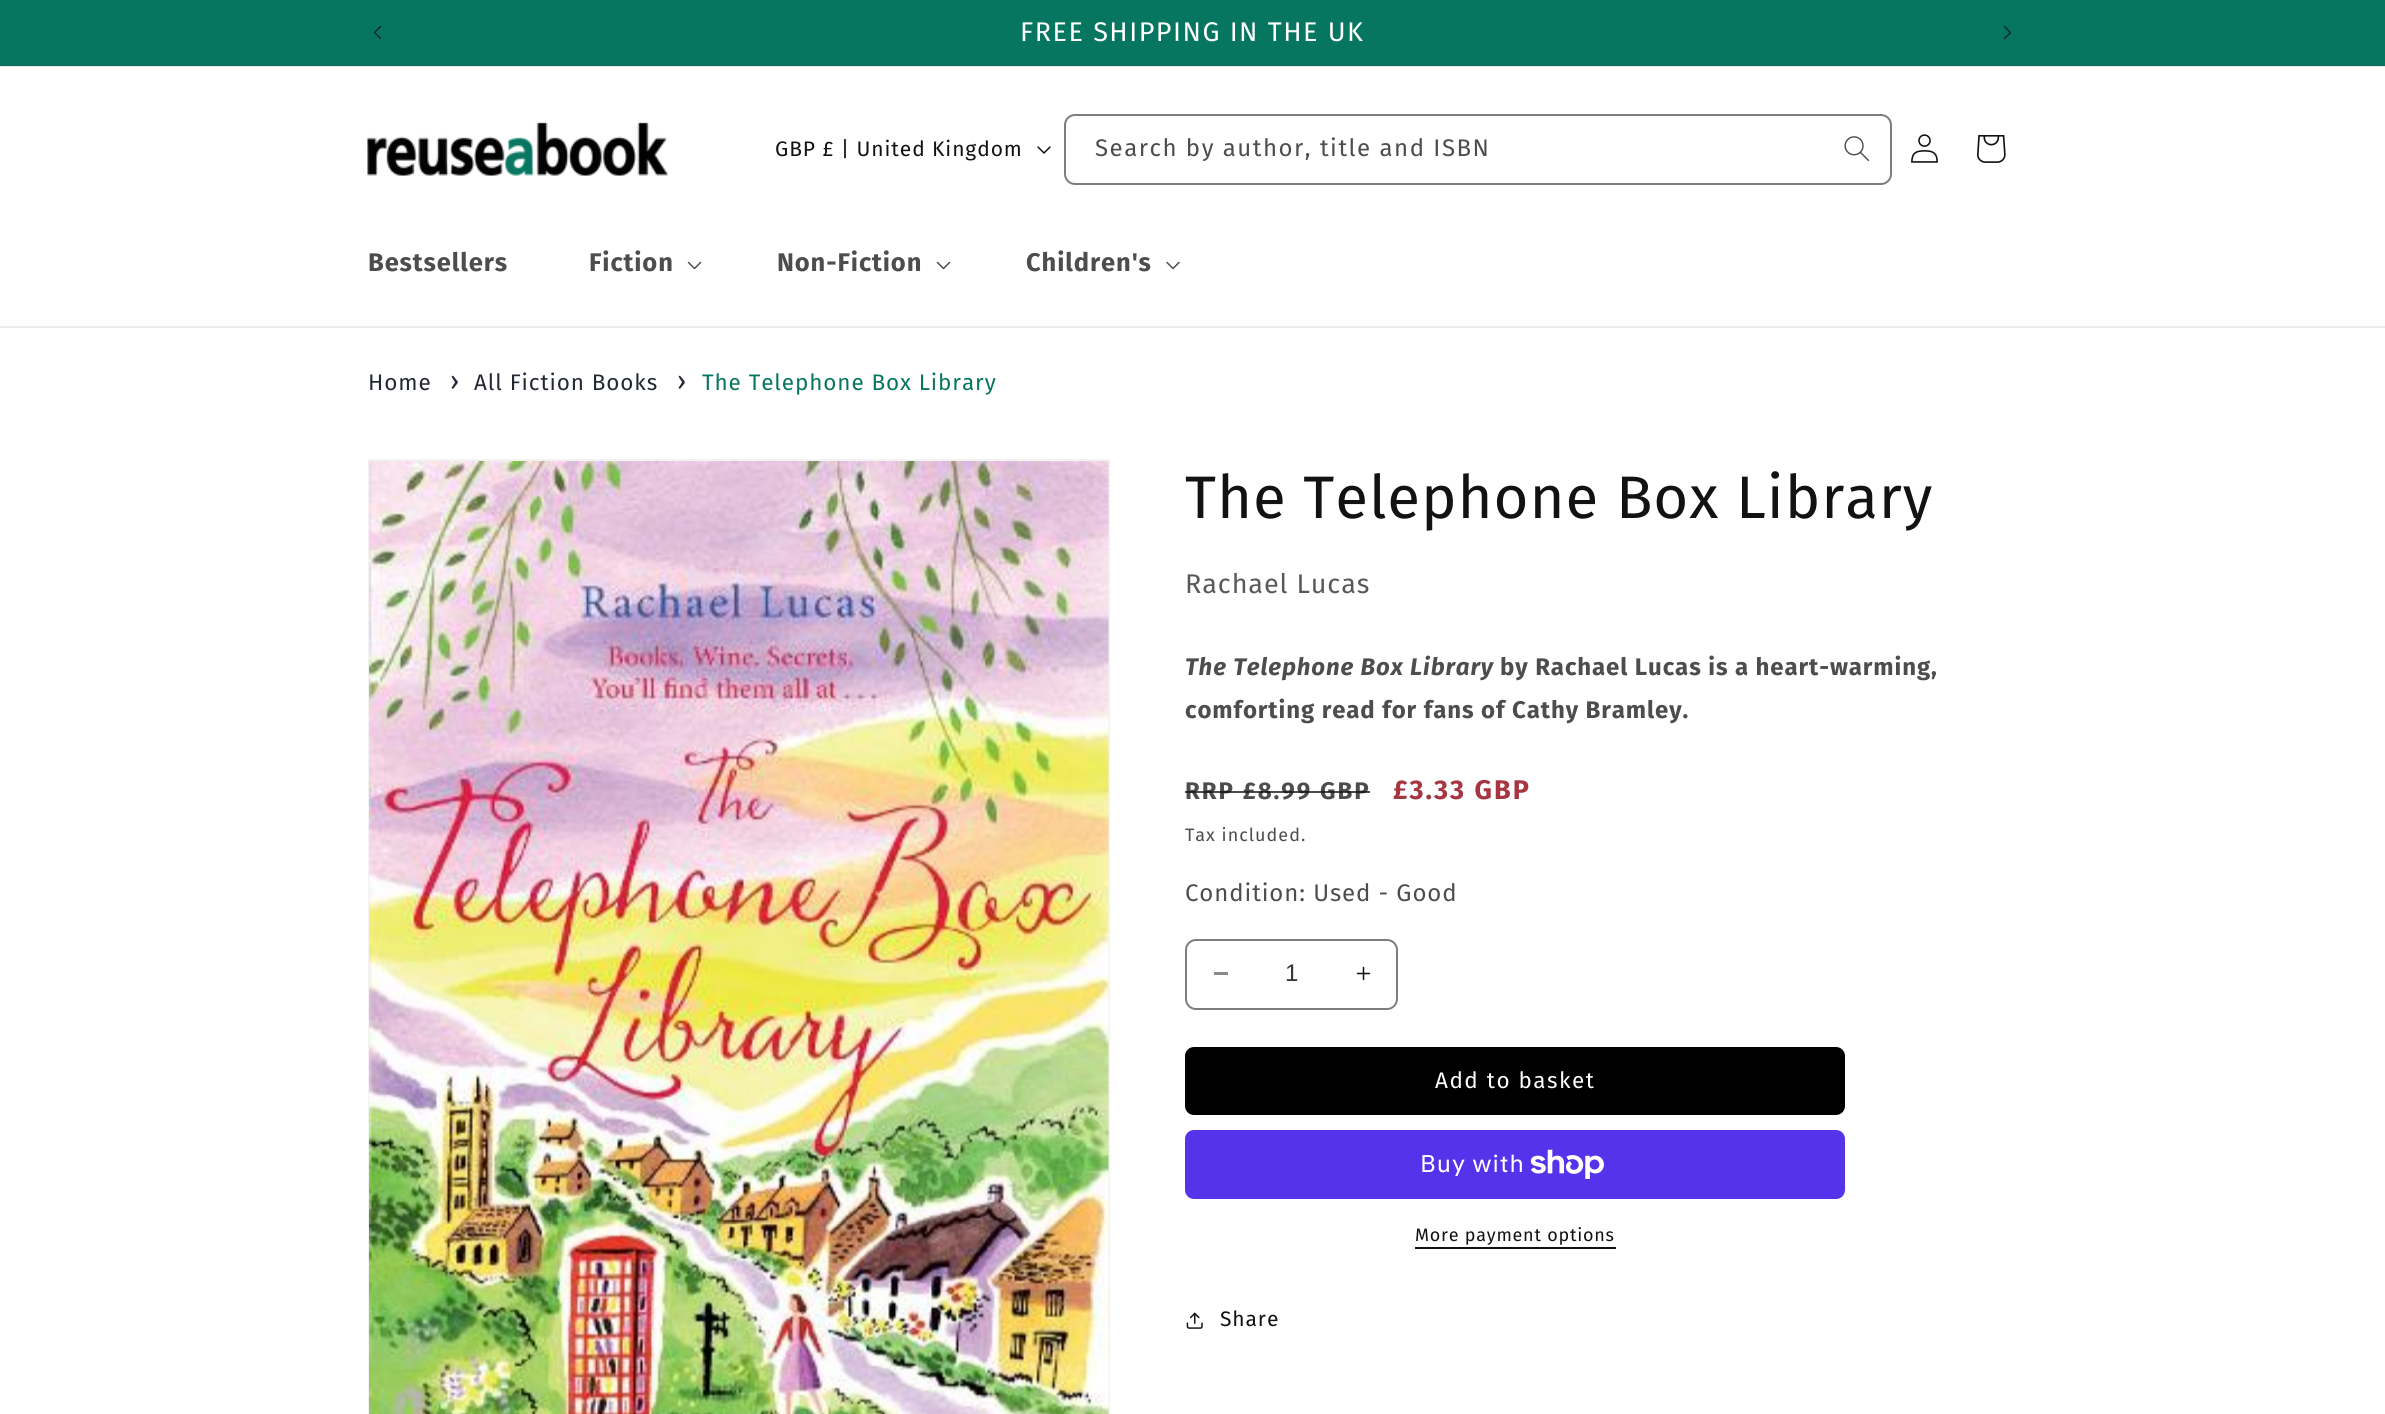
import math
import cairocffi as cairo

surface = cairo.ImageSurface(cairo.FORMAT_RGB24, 2385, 1414)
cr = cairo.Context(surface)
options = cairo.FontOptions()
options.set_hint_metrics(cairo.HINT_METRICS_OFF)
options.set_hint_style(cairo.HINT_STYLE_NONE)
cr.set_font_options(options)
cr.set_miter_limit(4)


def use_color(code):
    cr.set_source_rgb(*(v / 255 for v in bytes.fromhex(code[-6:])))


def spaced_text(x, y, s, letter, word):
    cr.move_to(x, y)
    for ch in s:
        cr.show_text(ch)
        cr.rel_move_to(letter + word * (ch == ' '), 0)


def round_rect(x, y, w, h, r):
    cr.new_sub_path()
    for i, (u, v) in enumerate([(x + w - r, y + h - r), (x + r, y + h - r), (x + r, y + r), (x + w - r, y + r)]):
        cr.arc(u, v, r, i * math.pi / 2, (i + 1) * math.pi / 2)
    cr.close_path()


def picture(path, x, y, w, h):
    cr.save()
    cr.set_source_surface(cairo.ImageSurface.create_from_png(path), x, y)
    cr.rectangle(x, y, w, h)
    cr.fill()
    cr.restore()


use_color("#ffffff")
cr.paint()
use_color("#ececec")
cr.rectangle(0, 66, 2385, 1)
cr.fill()
use_color("#077661")
cr.rectangle(0, 0, 2385, 65)
cr.fill()
use_color("#086e5b")
cr.rectangle(0, 65, 2385, 1)
cr.fill()
picture("img1.png", 373, 25, 9, 15)
cr.select_font_face("Fira Sans")
cr.set_font_size(27)
use_color("#ffffff")
spaced_text(1020, 41, "FREE SHIPPING IN THE UK", 1.5, 0)
picture("img2.png", 2003, 25, 9, 15)
use_color("#ececec")
cr.rectangle(0, 326, 2385, 2)
cr.fill()
picture("img3.png", 367, 122, 301, 54)
cr.set_font_size(21)
use_color("#121212")
spaced_text(775, 156, "GBP £ | United Kingdom", 0.9, 0)
picture("img4.png", 1037, 146, 14, 8)
picture("img5.png", 1844, 136, 26, 26)
round_rect(1065, 115, 826, 69, 10)
use_color("#7d7d7d")
cr.stroke()
cr.set_font_size(24)
use_color("#4d4d4d")
spaced_text(1095, 156, "Search by author, title and ISBN", 1.5, 0)
picture("img6.png", 1911, 134, 27, 29)
picture("img7.png", 1977, 135, 29, 28)
cr.select_font_face("Fira Sans", cairo.FONT_SLANT_NORMAL, cairo.FONT_WEIGHT_BOLD)
cr.set_font_size(25.5)
spaced_text(368, 271, "Bestsellers", 0.9, 0)
spaced_text(589, 271, "Fiction", 0.9, 0)
picture("img8.png", 687, 261, 15, 9)
spaced_text(777, 271, "Non-Fiction", 0.9, 0)
picture("img8.png", 936, 261, 15, 9)
spaced_text(1026, 271, "Children's", 0.9, 0)
picture("img9.png", 1166, 261, 14, 9)
cr.select_font_face("Fira Sans")
cr.set_font_size(22.5)
use_color("#242833")
spaced_text(368, 390, "Home", 0.9, 0)
cr.set_font_size(27)
spaced_text(450, 390, "›", 0.9, 0)
cr.set_font_size(22.5)
spaced_text(474, 390, "All Fiction Books", 0.9, 0)
cr.set_font_size(27)
spaced_text(677, 390, "›", 0.9, 0)
cr.set_font_size(22.5)
use_color("#077661")
spaced_text(702, 390, "The Telephone Box Library", 0.9, 0)
cr.rectangle(369, 460, 740, 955)
use_color("#f3f3f3")
cr.stroke()
picture("img10.png", 369, 461, 740, 953)
cr.set_font_size(60)
use_color("#121212")
spaced_text(1185, 518, "The Telephone Box Library", 0.9, 0)
cr.set_font_size(27)
use_color("#595959")
spaced_text(1185, 593, "Rachael Lucas", 0.9, 0)
cr.select_font_face("Fira Sans", cairo.FONT_SLANT_ITALIC, cairo.FONT_WEIGHT_BOLD)
cr.set_font_size(24)
use_color("#4d4d4d")
spaced_text(1185, 675, "The Telephone Box Library", 0.9, 0)
cr.select_font_face("Fira Sans", cairo.FONT_SLANT_NORMAL, cairo.FONT_WEIGHT_BOLD)
spaced_text(1500, 675, "by Rachael Lucas is a heart-warming,", 0.9, 0)
spaced_text(1185, 718, "comforting read for fans of Cathy Bramley.", 0.9, 0)
spaced_text(1185, 799, "RRP £8.99 GBP", 2, 0)
cr.set_source_rgba(0.071, 0.071, 0.071, 0.75)
cr.rectangle(1185, 791, 185, 2)
cr.fill()
cr.set_font_size(27)
use_color("#a63641")
spaced_text(1393, 799, "£3.33 GBP", 2, 0)
cr.select_font_face("Fira Sans")
cr.set_font_size(18)
use_color("#4d4d4d")
spaced_text(1185, 841, "Tax included.", 1, 0)
cr.set_font_size(24)
spaced_text(1185, 901, "Condition: Used - Good", 0.9, 0)
use_color("#898989")
cr.rectangle(1214, 972, 14, 3)
cr.fill()
picture("img11.png", 1356, 966, 15, 15)
round_rect(1186, 940, 211, 69, 10)
use_color("#7d7d7d")
cr.stroke()
cr.select_font_face("Liberation Sans")
use_color("#363636")
cr.move_to(1285, 981)
cr.show_text("1")
use_color("#000000")
round_rect(1185, 1047, 660, 68, 9)
cr.fill()
cr.select_font_face("Fira Sans")
cr.set_font_size(22.5)
use_color("#ffffff")
spaced_text(1435, 1088, "Add to basket", 1.5, 0)
use_color("#5433eb")
round_rect(1185, 1130, 660, 69, 9)
cr.fill()
cr.select_font_face("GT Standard")
cr.set_font_size(24)
use_color("#ffffff")
spaced_text(1420, 1172, "Buy with", 0.9, 0)
picture("img12.png", 1530, 1149, 74, 30)
cr.select_font_face("Fira Sans")
cr.set_font_size(18)
use_color("#121212")
spaced_text(1415, 1241, "More payment options", 0.75, 0)
cr.rectangle(1415, 1247, 201, 2)
cr.fill()
picture("img13.png", 1186, 1312, 17, 17)
cr.set_font_size(21)
spaced_text(1220, 1326, "Share", 0.9, 0)
surface.write_to_png("result.png")
